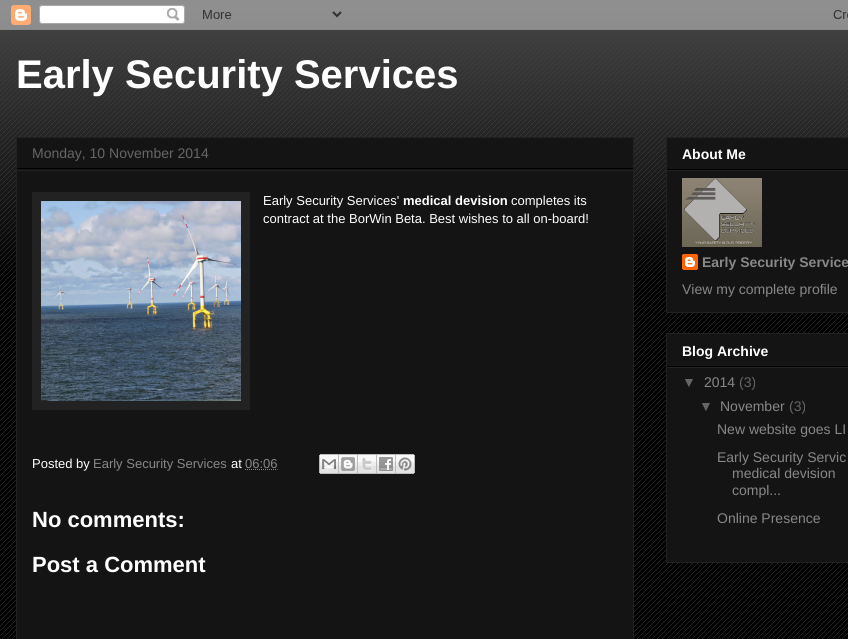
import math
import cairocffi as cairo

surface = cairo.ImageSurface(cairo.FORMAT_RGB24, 848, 639)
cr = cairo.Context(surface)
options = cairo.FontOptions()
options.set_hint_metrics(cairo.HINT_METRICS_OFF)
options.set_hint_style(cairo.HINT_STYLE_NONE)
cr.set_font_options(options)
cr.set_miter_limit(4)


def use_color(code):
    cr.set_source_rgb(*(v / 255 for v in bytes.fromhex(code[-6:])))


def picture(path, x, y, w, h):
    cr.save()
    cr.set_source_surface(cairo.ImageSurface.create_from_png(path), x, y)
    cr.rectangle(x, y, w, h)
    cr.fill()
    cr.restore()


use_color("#000000")
cr.paint()
picture("img1.png", 0, 13, 848, 626)
picture("img2.png", 0, 0, 848, 268)
picture("img3.png", 0, 0, 848, 30)
cr.select_font_face("Liberation Sans", cairo.FONT_SLANT_NORMAL, cairo.FONT_WEIGHT_BOLD)
cr.set_font_size(40)
use_color("#ffffff")
cr.move_to(16, 88)
cr.show_text("Early Security Services")
use_color("#141414")
cr.rectangle(16.5, 137.5, 617, 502)
cr.fill_preserve()
use_color("#222222")
cr.set_line_width(1)
cr.stroke()
use_color("#000000")
cr.rectangle(17, 168, 616, 1)
cr.fill()
cr.select_font_face("Liberation Sans")
cr.set_font_size(14)
use_color("#666666")
cr.move_to(32, 158)
cr.show_text("Monday, 10 November 2014")
use_color("#222222")
cr.rectangle(17, 170, 616, 1)
cr.fill()
cr.rectangle(32, 192, 218, 218)
cr.fill()
picture("img4.png", 41, 201, 200, 200)
cr.set_font_size(13)
use_color("#ffffff")
cr.move_to(263, 205)
cr.show_text("Early Security Services'")
cr.select_font_face("Liberation Sans", cairo.FONT_SLANT_NORMAL, cairo.FONT_WEIGHT_BOLD)
cr.move_to(403, 205)
cr.show_text("medical devision")
cr.select_font_face("Liberation Sans")
cr.move_to(511, 205)
cr.show_text("completes its")
cr.move_to(263, 223)
cr.show_text("contract at the BorWin Beta. Best wishes to all on-board!")
cr.move_to(32, 468)
cr.show_text("Posted by")
use_color("#888888")
cr.move_to(93, 468)
cr.show_text("Early Security Services")
use_color("#ffffff")
cr.move_to(231, 468)
cr.show_text("at")
use_color("#888888")
cr.move_to(245, 468)
cr.show_text("06:06")
cr.new_path()
cr.move_to(245, 469.5)
cr.line_to(277.5, 469.5)
cr.set_dash([1, 1])
cr.stroke()
picture("img5.png", 319, 454, 20, 20)
picture("img6.png", 339, 454, 19, 20)
picture("img7.png", 358, 454, 19, 20)
picture("img8.png", 377, 454, 19, 20)
picture("img9.png", 396, 454, 19, 20)
cr.select_font_face("Liberation Sans", cairo.FONT_SLANT_NORMAL, cairo.FONT_WEIGHT_BOLD)
cr.set_font_size(22)
use_color("#ffffff")
cr.move_to(32, 527)
cr.show_text("No comments:")
cr.move_to(32, 572)
cr.show_text("Post a Comment")
use_color("#141414")
cr.rectangle(666.5, 137.5, 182, 175)
cr.fill_preserve()
use_color("#222222")
cr.set_dash([])
cr.stroke()
use_color("#000000")
cr.rectangle(667, 169, 181, 1)
cr.fill()
cr.set_font_size(14)
use_color("#ffffff")
cr.move_to(682, 159)
cr.show_text("About Me")
use_color("#222222")
cr.rectangle(667, 170, 181, 1)
cr.fill()
picture("img10.png", 682, 178, 80, 69)
picture("img11.png", 682, 254, 16, 16)
use_color("#888888")
cr.move_to(702, 267)
cr.show_text("Early Security Service")
cr.select_font_face("Liberation Sans")
cr.move_to(682, 294)
cr.show_text("View my complete profile")
use_color("#141414")
cr.rectangle(666.5, 333.5, 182, 229)
cr.fill_preserve()
use_color("#222222")
cr.stroke()
use_color("#000000")
cr.rectangle(667, 366, 181, 1)
cr.fill()
cr.select_font_face("Liberation Sans", cairo.FONT_SLANT_NORMAL, cairo.FONT_WEIGHT_BOLD)
use_color("#ffffff")
cr.move_to(682, 356)
cr.show_text("Blog Archive")
use_color("#222222")
cr.rectangle(667, 367, 181, 1)
cr.fill()
cr.select_font_face("Liberation Sans")
use_color("#666666")
cr.move_to(682, 387)
cr.show_text("▼")
use_color("#888888")
cr.move_to(704, 387)
cr.show_text("2014")
use_color("#666666")
cr.move_to(739, 387)
cr.show_text("(3)")
cr.move_to(699, 411)
cr.show_text("▼")
use_color("#888888")
cr.move_to(720, 411)
cr.show_text("November")
use_color("#666666")
cr.move_to(789, 411)
cr.show_text("(3)")
use_color("#888888")
cr.move_to(717, 434)
cr.show_text("New website goes LI")
cr.move_to(717, 462)
cr.show_text("Early Security Servic")
cr.move_to(732, 478)
cr.show_text("medical devision")
cr.move_to(732, 495)
cr.show_text("compl...")
cr.move_to(717, 523)
cr.show_text("Online Presence")
surface.write_to_png("result.png")
